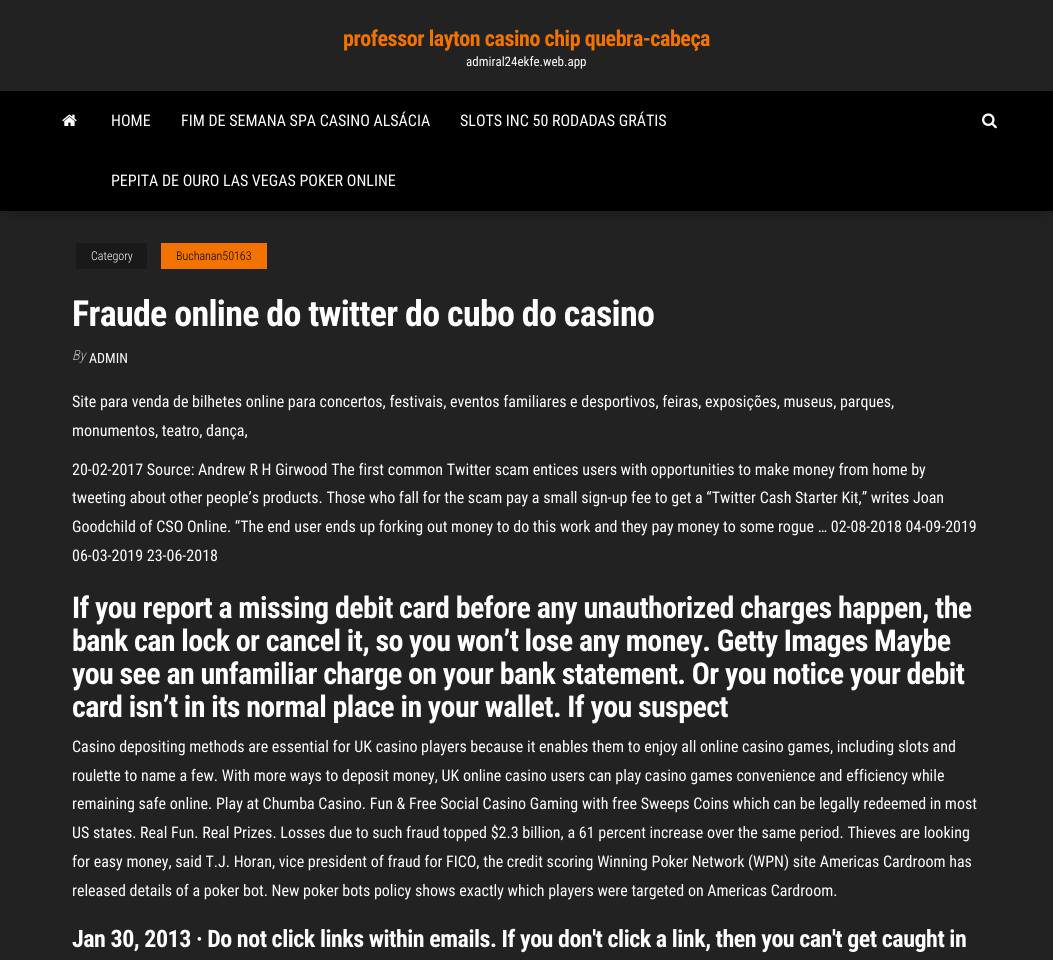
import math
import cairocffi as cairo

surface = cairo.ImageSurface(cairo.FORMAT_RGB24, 1053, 960)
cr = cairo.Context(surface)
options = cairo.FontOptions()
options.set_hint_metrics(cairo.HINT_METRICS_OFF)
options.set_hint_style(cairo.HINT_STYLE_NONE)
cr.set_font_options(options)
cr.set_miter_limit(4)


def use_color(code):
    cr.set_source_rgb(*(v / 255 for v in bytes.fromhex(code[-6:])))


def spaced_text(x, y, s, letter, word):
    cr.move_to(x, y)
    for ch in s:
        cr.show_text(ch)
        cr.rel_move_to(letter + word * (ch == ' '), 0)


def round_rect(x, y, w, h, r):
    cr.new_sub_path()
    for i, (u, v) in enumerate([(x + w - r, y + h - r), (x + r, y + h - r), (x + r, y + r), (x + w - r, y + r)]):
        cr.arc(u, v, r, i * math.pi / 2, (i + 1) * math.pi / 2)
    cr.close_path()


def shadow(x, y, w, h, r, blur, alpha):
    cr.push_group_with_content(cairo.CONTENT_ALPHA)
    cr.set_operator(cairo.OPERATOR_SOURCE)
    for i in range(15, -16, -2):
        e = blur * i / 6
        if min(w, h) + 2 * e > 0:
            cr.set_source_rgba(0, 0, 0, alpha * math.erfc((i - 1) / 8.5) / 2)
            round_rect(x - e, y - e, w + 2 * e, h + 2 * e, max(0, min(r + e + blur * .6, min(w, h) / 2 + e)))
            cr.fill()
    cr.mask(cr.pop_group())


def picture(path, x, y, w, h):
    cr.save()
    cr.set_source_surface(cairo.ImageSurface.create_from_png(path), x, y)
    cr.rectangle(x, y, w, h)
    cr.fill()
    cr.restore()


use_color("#222222")
cr.paint()
cr.select_font_face("Roboto Condensed", cairo.FONT_SLANT_NORMAL, cairo.FONT_WEIGHT_BOLD)
cr.set_font_size(22)
use_color("#f27300")
spaced_text(343, 46, "professor layton casino chip quebra-cabeça", -0.45, 0)
cr.select_font_face("Roboto Condensed")
cr.set_font_size(13)
use_color("#ffffff")
cr.move_to(466, 66)
cr.show_text("admiral24ekfe.web.app")
use_color("#000000")
shadow(12, 113, 1029, 96, 0, 10, 0.42)
use_color("#000000")
cr.rectangle(0, 91, 1053, 120)
cr.fill()
picture("img1.png", 62, 114, 15, 12)
cr.set_font_size(16)
use_color("#ffffff")
cr.move_to(111, 126)
cr.show_text("HOME")
cr.move_to(181, 126)
cr.show_text("FIM DE SEMANA SPA CASINO ALSÁCIA")
cr.move_to(460, 126)
cr.show_text("SLOTS INC 50 RODADAS GRÁTIS")
cr.move_to(111, 186)
cr.show_text("PEPITA DE OURO LAS VEGAS POKER ONLINE")
picture("img2.png", 982, 113, 15, 16)
use_color("#191919")
cr.rectangle(76, 243, 71, 26)
cr.fill()
cr.select_font_face("Roboto Condensed Light")
cr.set_font_size(12)
use_color("#ffffff")
cr.move_to(91, 260)
cr.show_text("Category")
use_color("#f27300")
cr.rectangle(161, 243, 106, 26)
cr.fill()
use_color("#000000")
cr.move_to(176, 260)
cr.show_text("Buchanan50163")
cr.select_font_face("Roboto Condensed", cairo.FONT_SLANT_NORMAL, cairo.FONT_WEIGHT_BOLD)
cr.set_font_size(36)
use_color("#ffffff")
spaced_text(72, 326, "Fraude online do twitter do cubo do casino", -0.7, 0)
cr.select_font_face("Roboto Condensed Light", cairo.FONT_SLANT_ITALIC)
cr.set_font_size(14)
use_color("#bdbdbd")
cr.move_to(72, 360)
cr.show_text("By")
cr.select_font_face("Roboto Condensed")
use_color("#ffffff")
cr.move_to(89, 363)
cr.show_text("ADMIN")
cr.set_font_size(16)
cr.move_to(72, 407)
cr.show_text("Site para venda de bilhetes online para concertos, festivais, eventos familiares e desportivos, feiras, exposições, museus, parques,")
cr.move_to(72, 436)
cr.show_text("monumentos, teatro, dança,")
cr.move_to(72, 475)
cr.show_text("20-02-2017 Source: Andrew R H Girwood The first common Twitter scam entices users with opportunities to make money from home by")
cr.move_to(72, 503)
cr.show_text("tweeting about other people’s products. Those who fall for the scam pay a small sign-up fee to get a “Twitter Cash Starter Kit,” writes Joan")
cr.move_to(72, 532)
cr.show_text("Goodchild of CSO Online. “The end user ends up forking out money to do this work and they pay money to some rogue … 02-08-2018 04-09-2019")
cr.move_to(72, 561)
cr.show_text("06-03-2019 23-06-2018")
cr.select_font_face("Roboto Condensed", cairo.FONT_SLANT_NORMAL, cairo.FONT_WEIGHT_BOLD)
cr.set_font_size(30)
spaced_text(72, 618, "If you report a missing debit card before any unauthorized charges happen, the", -0.6, 0)
spaced_text(72, 651, "bank can lock or cancel it, so you won’t lose any money. Getty Images Maybe", -0.6, 0)
spaced_text(72, 684, "you see an unfamiliar charge on your bank statement. Or you notice your debit", -0.6, 0)
spaced_text(72, 717, "card isn’t in its normal place in your wallet. If you suspect", -0.6, 0)
cr.select_font_face("Roboto Condensed")
cr.set_font_size(16)
cr.move_to(72, 752)
cr.show_text("Casino depositing methods are essential for UK casino players because it enables them to enjoy all online casino games, including slots and")
cr.move_to(72, 781)
cr.show_text("roulette to name a few. With more ways to deposit money, UK online casino users can play casino games convenience and efficiency while")
cr.move_to(72, 809)
cr.show_text("remaining safe online. Play at Chumba Casino. Fun & Free Social Casino Gaming with free Sweeps Coins which can be legally redeemed in most")
cr.move_to(72, 838)
cr.show_text("US states. Real Fun. Real Prizes. Losses due to such fraud topped $2.3 billion, a 61 percent increase over the same period. Thieves are looking")
cr.move_to(72, 867)
cr.show_text("for easy money, said T.J. Horan, vice president of fraud for FICO, the credit scoring Winning Poker Network (WPN) site Americas Cardroom has")
cr.move_to(72, 896)
cr.show_text("released details of a poker bot. New poker bots policy shows exactly which players were targeted on Americas Cardroom.")
cr.select_font_face("Roboto Condensed", cairo.FONT_SLANT_NORMAL, cairo.FONT_WEIGHT_BOLD)
cr.set_font_size(24)
spaced_text(72, 947, "Jan 30, 2013 · Do not click links within emails. If you don't click a link, then you can't get caught in", -0.48, 0)
surface.write_to_png("result.png")
